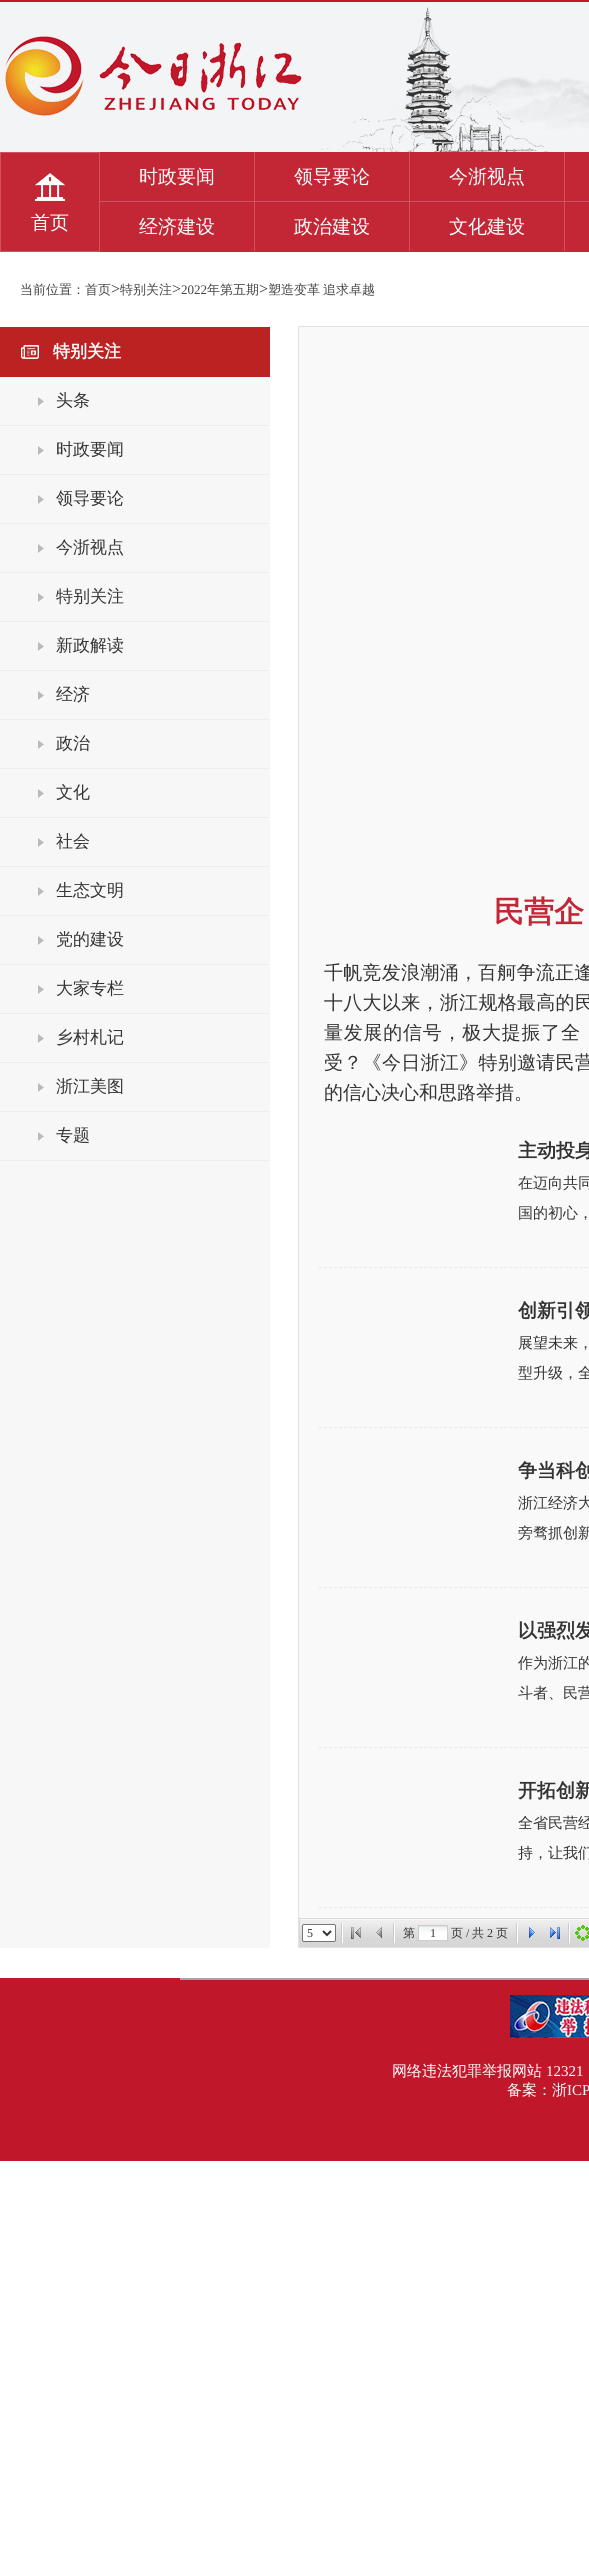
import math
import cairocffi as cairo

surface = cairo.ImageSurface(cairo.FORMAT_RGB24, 589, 2552)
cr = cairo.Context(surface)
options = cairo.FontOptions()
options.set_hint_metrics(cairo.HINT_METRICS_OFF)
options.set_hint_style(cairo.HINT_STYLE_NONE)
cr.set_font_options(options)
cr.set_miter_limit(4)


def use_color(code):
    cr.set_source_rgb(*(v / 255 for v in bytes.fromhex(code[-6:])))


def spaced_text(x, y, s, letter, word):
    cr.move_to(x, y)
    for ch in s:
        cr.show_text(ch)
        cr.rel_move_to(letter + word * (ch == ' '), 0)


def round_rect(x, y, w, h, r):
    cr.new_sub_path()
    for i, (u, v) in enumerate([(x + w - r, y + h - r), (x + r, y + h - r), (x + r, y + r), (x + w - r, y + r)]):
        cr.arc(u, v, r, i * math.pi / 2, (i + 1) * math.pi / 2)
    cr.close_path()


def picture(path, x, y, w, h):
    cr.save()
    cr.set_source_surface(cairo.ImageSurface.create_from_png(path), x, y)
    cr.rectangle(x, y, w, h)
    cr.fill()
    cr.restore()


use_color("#ffffff")
cr.paint()
picture("img1.png", 0, 0, 589, 152)
use_color("#c32736")
cr.rectangle(1, 152, 588, 100)
cr.fill()
use_color("#d05360")
cr.rectangle(100, 201, 489, 1)
cr.fill()
cr.rectangle(254, 152, 1, 99)
cr.fill()
cr.select_font_face("WenQuanYi Zen Hei Medium")
cr.set_font_size(19)
use_color("#ffffff")
cr.move_to(139, 183)
cr.show_text("时政要闻")
use_color("#d05360")
cr.rectangle(409, 152, 1, 99)
cr.fill()
use_color("#ffffff")
cr.move_to(294, 183)
cr.show_text("领导要论")
use_color("#d05360")
cr.rectangle(564, 152, 1, 99)
cr.fill()
use_color("#ffffff")
cr.move_to(449, 183)
cr.show_text("今浙视点")
picture("img2.png", 35, 173, 30, 28)
cr.rectangle(0.5, 152.5, 99, 99)
use_color("#d05360")
cr.set_line_width(1)
cr.stroke()
use_color("#ffffff")
cr.move_to(31, 229)
cr.show_text("首页")
cr.move_to(139, 233)
cr.show_text("经济建设")
cr.move_to(294, 233)
cr.show_text("政治建设")
cr.move_to(449, 233)
cr.show_text("文化建设")
cr.set_font_size(13)
use_color("#454545")
cr.move_to(20, 294)
cr.show_text("当前位置：首页")
cr.select_font_face("Liberation Serif")
cr.set_font_size(16)
use_color("#333333")
cr.move_to(111, 294)
cr.show_text(">")
cr.select_font_face("WenQuanYi Zen Hei Medium")
cr.set_font_size(13)
use_color("#454545")
cr.move_to(120, 294)
cr.show_text("特别关注")
cr.select_font_face("Liberation Serif")
cr.set_font_size(16)
use_color("#333333")
cr.move_to(172, 294)
cr.show_text(">")
cr.set_font_size(13)
use_color("#454545")
cr.move_to(181, 294)
cr.show_text("2022")
cr.select_font_face("WenQuanYi Zen Hei Medium")
cr.move_to(207, 294)
cr.show_text("年第五期")
cr.select_font_face("Liberation Serif")
cr.set_font_size(16)
use_color("#333333")
cr.move_to(259, 294)
cr.show_text(">")
cr.select_font_face("WenQuanYi Zen Hei Medium")
cr.set_font_size(13)
use_color("#454545")
spaced_text(268, 294, "塑造变革 追求卓越", 0, -1)
use_color("#f7f7f7")
cr.rectangle(0, 377, 270, 1571)
cr.fill()
use_color("#bb2323")
cr.rectangle(0, 327, 270, 50)
cr.fill()
picture("img3.png", 21, 345, 18, 14)
cr.select_font_face("WenQuanYi Zen Hei", cairo.FONT_SLANT_NORMAL, cairo.FONT_WEIGHT_BOLD)
cr.set_font_size(17)
use_color("#ffffff")
cr.move_to(53, 357)
cr.show_text("特别关注")
picture("img4.png", 38, 397, 6, 9)
use_color("#ededed")
cr.rectangle(0, 425, 270, 1)
cr.fill()
cr.select_font_face("WenQuanYi Zen Hei Medium")
use_color("#333333")
cr.move_to(56, 406)
cr.show_text("头条")
picture("img4.png", 38, 446, 6, 9)
use_color("#ededed")
cr.rectangle(0, 474, 270, 1)
cr.fill()
use_color("#333333")
cr.move_to(56, 455)
cr.show_text("时政要闻")
picture("img4.png", 38, 495, 6, 9)
use_color("#ededed")
cr.rectangle(0, 523, 270, 1)
cr.fill()
use_color("#333333")
cr.move_to(56, 504)
cr.show_text("领导要论")
picture("img4.png", 38, 544, 6, 9)
use_color("#ededed")
cr.rectangle(0, 572, 270, 1)
cr.fill()
use_color("#333333")
cr.move_to(56, 553)
cr.show_text("今浙视点")
picture("img4.png", 38, 593, 6, 9)
use_color("#ededed")
cr.rectangle(0, 621, 270, 1)
cr.fill()
use_color("#333333")
cr.move_to(56, 602)
cr.show_text("特别关注")
picture("img4.png", 38, 642, 6, 9)
use_color("#ededed")
cr.rectangle(0, 670, 270, 1)
cr.fill()
use_color("#333333")
cr.move_to(56, 651)
cr.show_text("新政解读")
picture("img4.png", 38, 691, 6, 9)
use_color("#ededed")
cr.rectangle(0, 719, 270, 1)
cr.fill()
use_color("#333333")
cr.move_to(56, 700)
cr.show_text("经济")
picture("img4.png", 38, 740, 6, 9)
use_color("#ededed")
cr.rectangle(0, 768, 270, 1)
cr.fill()
use_color("#333333")
cr.move_to(56, 749)
cr.show_text("政治")
picture("img4.png", 38, 789, 6, 9)
use_color("#ededed")
cr.rectangle(0, 817, 270, 1)
cr.fill()
use_color("#333333")
cr.move_to(56, 798)
cr.show_text("文化")
picture("img4.png", 38, 838, 6, 9)
use_color("#ededed")
cr.rectangle(0, 866, 270, 1)
cr.fill()
use_color("#333333")
cr.move_to(56, 847)
cr.show_text("社会")
picture("img4.png", 38, 887, 6, 9)
use_color("#ededed")
cr.rectangle(0, 915, 270, 1)
cr.fill()
use_color("#333333")
cr.move_to(56, 896)
cr.show_text("生态文明")
picture("img4.png", 38, 936, 6, 9)
use_color("#ededed")
cr.rectangle(0, 964, 270, 1)
cr.fill()
use_color("#333333")
cr.move_to(56, 945)
cr.show_text("党的建设")
picture("img4.png", 38, 985, 6, 9)
use_color("#ededed")
cr.rectangle(0, 1013, 270, 1)
cr.fill()
use_color("#333333")
cr.move_to(56, 994)
cr.show_text("大家专栏")
picture("img4.png", 38, 1034, 6, 9)
use_color("#ededed")
cr.rectangle(0, 1062, 270, 1)
cr.fill()
use_color("#333333")
cr.move_to(56, 1043)
cr.show_text("乡村札记")
picture("img4.png", 38, 1083, 6, 9)
use_color("#ededed")
cr.rectangle(0, 1111, 270, 1)
cr.fill()
use_color("#333333")
cr.move_to(56, 1092)
cr.show_text("浙江美图")
picture("img4.png", 38, 1132, 6, 9)
use_color("#ededed")
cr.rectangle(0, 1160, 270, 1)
cr.fill()
use_color("#333333")
cr.move_to(56, 1141)
cr.show_text("专题")
use_color("#f9f9f9")
cr.rectangle(299, 327, 290, 1591)
cr.fill()
use_color("#e2e2e2")
cr.rectangle(298, 326, 291, 1)
cr.fill()
use_color("#dadada")
cr.rectangle(299, 1918, 290, 1)
cr.fill()
cr.rectangle(299, 1918, 1, 30)
cr.fill()
use_color("#e2e2e2")
cr.rectangle(298, 1947, 291, 1)
cr.fill()
cr.rectangle(298, 326, 1, 1622)
cr.fill()
cr.select_font_face("WenQuanYi Zen Hei", cairo.FONT_SLANT_NORMAL, cairo.FONT_WEIGHT_BOLD)
cr.set_font_size(30)
use_color("#c32736")
cr.move_to(494, 922)
cr.show_text("民营企")
cr.select_font_face("WenQuanYi Zen Hei Medium")
cr.set_font_size(19)
use_color("#333333")
spaced_text(324, 979, "千帆竞发浪潮涌，百舸争流正逢", 0.25, 0)
spaced_text(324, 1009, "十八大以来，浙江规格最高的民", 0.3, 0)
spaced_text(324, 1039, "量发展的信号，极大提振了全", 0.75, 0)
spaced_text(324, 1069, "受？《今日浙江》特别邀请民营", 0.3, 0)
cr.move_to(324, 1099)
cr.show_text("的信心决心和思路举措。")
cr.new_path()
cr.move_to(319, 1267.5)
cr.line_to(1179, 1267.5)
use_color("#e8e8e8")
cr.set_dash([3, 2.01])
cr.stroke()
cr.select_font_face("WenQuanYi Zen Hei", cairo.FONT_SLANT_NORMAL, cairo.FONT_WEIGHT_BOLD)
use_color("#333333")
cr.move_to(518, 1157)
cr.show_text("主动投身")
cr.select_font_face("WenQuanYi Zen Hei Medium")
cr.set_font_size(15)
cr.move_to(518, 1188)
cr.show_text("在迈向共同")
cr.move_to(518, 1218)
cr.show_text("国的初心，")
cr.new_path()
cr.move_to(319, 1427.5)
cr.line_to(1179, 1427.5)
use_color("#e8e8e8")
cr.stroke()
cr.select_font_face("WenQuanYi Zen Hei", cairo.FONT_SLANT_NORMAL, cairo.FONT_WEIGHT_BOLD)
cr.set_font_size(19)
use_color("#333333")
cr.move_to(518, 1317)
cr.show_text("创新引领")
cr.select_font_face("WenQuanYi Zen Hei Medium")
cr.set_font_size(15)
cr.move_to(518, 1348)
cr.show_text("展望未来，")
cr.move_to(518, 1378)
cr.show_text("型升级，全")
cr.new_path()
cr.move_to(319, 1587.5)
cr.line_to(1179, 1587.5)
use_color("#e8e8e8")
cr.stroke()
cr.select_font_face("WenQuanYi Zen Hei", cairo.FONT_SLANT_NORMAL, cairo.FONT_WEIGHT_BOLD)
cr.set_font_size(19)
use_color("#333333")
spaced_text(518, 1477, "争当科创", 0, -1)
cr.select_font_face("WenQuanYi Zen Hei Medium")
cr.set_font_size(15)
cr.move_to(518, 1508)
cr.show_text("浙江经济大")
cr.move_to(518, 1538)
cr.show_text("旁骛抓创新")
cr.new_path()
cr.move_to(319, 1747.5)
cr.line_to(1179, 1747.5)
use_color("#e8e8e8")
cr.stroke()
cr.select_font_face("WenQuanYi Zen Hei", cairo.FONT_SLANT_NORMAL, cairo.FONT_WEIGHT_BOLD)
cr.set_font_size(19)
use_color("#333333")
cr.move_to(518, 1637)
cr.show_text("以强烈发")
cr.select_font_face("WenQuanYi Zen Hei Medium")
cr.set_font_size(15)
cr.move_to(518, 1668)
cr.show_text("作为浙江的")
cr.move_to(518, 1698)
cr.show_text("斗者、民营")
cr.new_path()
cr.move_to(319, 1907.5)
cr.line_to(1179, 1907.5)
use_color("#e8e8e8")
cr.stroke()
cr.select_font_face("WenQuanYi Zen Hei", cairo.FONT_SLANT_NORMAL, cairo.FONT_WEIGHT_BOLD)
cr.set_font_size(19)
use_color("#333333")
spaced_text(518, 1797, "开拓创新", 0, -1)
cr.select_font_face("WenQuanYi Zen Hei Medium")
cr.set_font_size(15)
cr.move_to(518, 1828)
cr.show_text("全省民营经")
cr.move_to(518, 1858)
cr.show_text("持，让我们")
picture("img5.png", 300, 1919, 289, 28)
use_color("#ffffff")
round_rect(302.5, 1924.5, 33, 17, 1.5)
cr.fill_preserve()
use_color("#767676")
cr.set_dash([])
cr.stroke()
cr.new_path()
cr.move_to(323, 1931)
cr.line_to(327, 1935)
cr.line_to(331, 1931)
use_color("#333333")
cr.set_line_width(2)
cr.stroke()
cr.select_font_face("Liberation Serif")
cr.set_font_size(12)
cr.move_to(307, 1937)
cr.show_text("5")
picture("img6.png", 341, 1923, 2, 20)
picture("img7.png", 351, 1927, 10, 12)
picture("img8.png", 376, 1927, 6, 11)
picture("img6.png", 393, 1923, 2, 20)
cr.select_font_face("WenQuanYi Zen Hei Medium")
cr.move_to(403, 1937)
cr.show_text("第")
picture("img9.png", 419, 1926, 28, 14)
cr.rectangle(418.5, 1925.5, 29, 15)
use_color("#cccccc")
cr.set_line_width(1)
cr.stroke()
cr.select_font_face("Liberation Serif")
use_color("#333333")
cr.move_to(430, 1937)
cr.show_text("1")
cr.select_font_face("WenQuanYi Zen Hei Medium")
cr.move_to(451, 1937)
cr.show_text("页")
cr.select_font_face("Liberation Serif")
cr.move_to(466, 1937)
cr.show_text("/")
cr.select_font_face("WenQuanYi Zen Hei Medium")
cr.move_to(472, 1937)
cr.show_text("共")
cr.select_font_face("Liberation Serif")
cr.move_to(487, 1937)
cr.show_text("2")
cr.select_font_face("WenQuanYi Zen Hei Medium")
cr.move_to(496, 1937)
cr.show_text("页")
picture("img6.png", 516, 1923, 2, 20)
picture("img10.png", 529, 1927, 6, 11)
picture("img11.png", 550, 1927, 10, 12)
picture("img6.png", 568, 1923, 2, 20)
picture("img12.png", 575, 1925, 14, 16)
use_color("#c0172a")
cr.rectangle(0, 1978, 589, 183)
cr.fill()
use_color("#a5a6a6")
cr.rectangle(180, 1978, 409, 2)
cr.fill()
picture("img13.png", 510, 1995, 79, 43)
cr.set_font_size(15)
use_color("#ffffff")
cr.move_to(392, 2076)
cr.show_text("网络违法犯罪举报网站")
cr.select_font_face("Liberation Serif")
cr.move_to(546, 2076)
cr.show_text("12321")
cr.select_font_face("WenQuanYi Zen Hei Medium")
cr.move_to(507, 2095)
cr.show_text("备案：浙")
cr.select_font_face("Liberation Serif")
cr.move_to(567, 2095)
cr.show_text("ICP")
surface.write_to_png("result.png")
